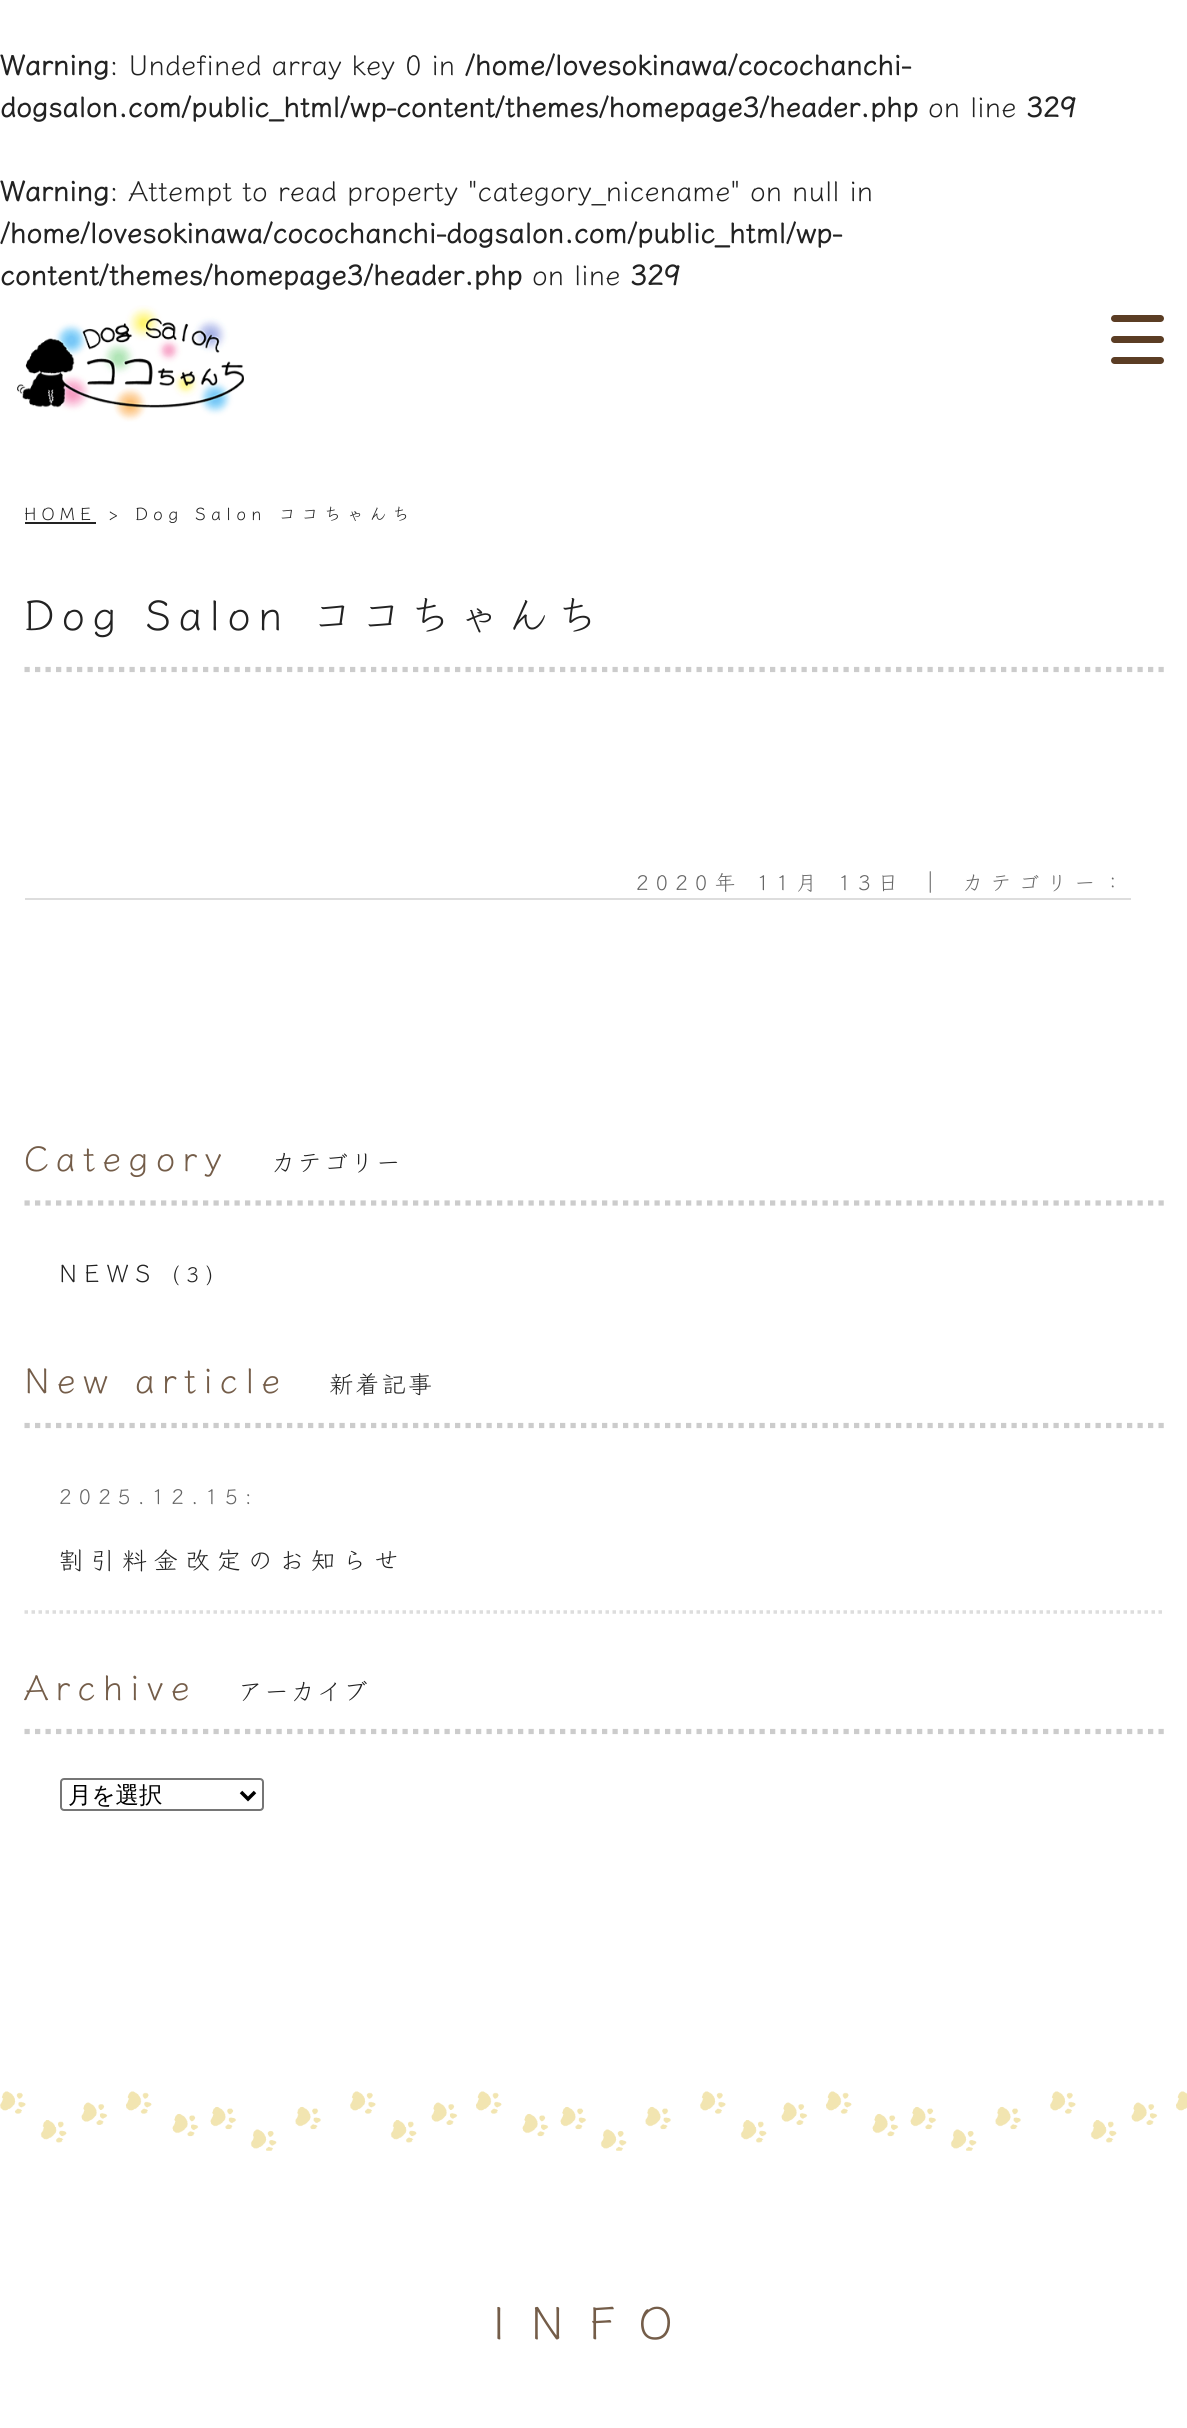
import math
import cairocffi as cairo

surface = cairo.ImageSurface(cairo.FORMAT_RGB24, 1187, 2428)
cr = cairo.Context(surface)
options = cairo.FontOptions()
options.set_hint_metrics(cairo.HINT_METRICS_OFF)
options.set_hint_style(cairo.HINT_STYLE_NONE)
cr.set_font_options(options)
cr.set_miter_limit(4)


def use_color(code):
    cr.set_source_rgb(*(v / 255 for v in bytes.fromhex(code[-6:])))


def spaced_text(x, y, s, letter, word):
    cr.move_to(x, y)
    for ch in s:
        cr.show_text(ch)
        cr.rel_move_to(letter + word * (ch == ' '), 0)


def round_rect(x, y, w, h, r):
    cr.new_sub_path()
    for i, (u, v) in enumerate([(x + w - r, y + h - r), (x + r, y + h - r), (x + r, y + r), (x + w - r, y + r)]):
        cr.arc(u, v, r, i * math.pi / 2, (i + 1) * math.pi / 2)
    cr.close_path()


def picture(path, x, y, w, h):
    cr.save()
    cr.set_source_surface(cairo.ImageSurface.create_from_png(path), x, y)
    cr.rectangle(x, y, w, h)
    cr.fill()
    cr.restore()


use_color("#ffffff")
cr.paint()
cr.select_font_face("Klee One", cairo.FONT_SLANT_NORMAL, cairo.FONT_WEIGHT_BOLD)
cr.set_font_size(28)
use_color("#222222")
cr.move_to(0, 75)
cr.show_text("Warning")
cr.select_font_face("Klee One")
cr.move_to(109, 75)
cr.show_text(": Undefined array key 0 in")
cr.select_font_face("Klee One", cairo.FONT_SLANT_NORMAL, cairo.FONT_WEIGHT_BOLD)
cr.move_to(465, 75)
cr.show_text("/home/lovesokinawa/cocochanchi-")
cr.move_to(0, 117)
cr.show_text("dogsalon.com/public_html/wp-content/themes/homepage3/header.php")
cr.select_font_face("Klee One")
cr.move_to(928, 117)
cr.show_text("on line")
cr.select_font_face("Klee One", cairo.FONT_SLANT_NORMAL, cairo.FONT_WEIGHT_BOLD)
cr.move_to(1026, 117)
cr.show_text("329")
cr.move_to(0, 201)
cr.show_text("Warning")
cr.select_font_face("Klee One")
cr.move_to(109, 201)
cr.show_text(": Attempt to read property \"category_nicename\" on null in")
cr.select_font_face("Klee One", cairo.FONT_SLANT_NORMAL, cairo.FONT_WEIGHT_BOLD)
cr.move_to(0, 243)
cr.show_text("/home/lovesokinawa/cocochanchi-dogsalon.com/public_html/wp-")
cr.move_to(0, 285)
cr.show_text("content/themes/homepage3/header.php")
cr.select_font_face("Klee One")
cr.move_to(532, 285)
cr.show_text("on line")
cr.select_font_face("Klee One", cairo.FONT_SLANT_NORMAL, cairo.FONT_WEIGHT_BOLD)
cr.move_to(630, 285)
cr.show_text("329")
picture("img1.png", 17, 305, 227, 117)
use_color("#5b3d24")
round_rect(1111, 315, 53, 7, 3.5)
cr.fill()
round_rect(1111, 336, 53, 7, 3.5)
cr.fill()
round_rect(1111, 357, 53, 7, 3.5)
cr.fill()
cr.select_font_face("Klee One")
cr.set_font_size(17.5)
use_color("#222222")
spaced_text(24, 520, "HOME", 5.25, 0)
use_color("#232323")
cr.rectangle(25, 522, 71, 2)
cr.fill()
use_color("#222222")
spaced_text(108, 520, "> Dog Salon ココちゃんち", 5.25, 0)
cr.new_path()
cr.move_to(24.5, 669.5)
cr.line_to(1164, 669.5)
use_color("#cccccc")
cr.set_line_width(5.2)
cr.set_dash([5.25, 5.25])
cr.stroke()
cr.set_font_size(42)
use_color("#222222")
spaced_text(24, 630, "Dog Salon ココちゃんち", 7, 0)
use_color("#dddddd")
cr.rectangle(25, 898, 1106, 2)
cr.fill()
cr.set_font_size(21)
use_color("#666666")
spaced_text(636, 890, "2020年 11月 13日 ｜ カテゴリー：", 7, 0)
cr.new_path()
cr.move_to(24.5, 1203)
cr.line_to(1164, 1203)
use_color("#cccccc")
cr.stroke()
cr.set_font_size(35)
use_color("#745d49")
spaced_text(24, 1171, "Category", 7, 0)
cr.set_font_size(24.5)
use_color("#222222")
spaced_text(271, 1171, "カテゴリー", 1.75, 0)
spaced_text(59, 1282, "NEWS", 7, 0)
cr.set_font_size(21)
spaced_text(172, 1282, "(3)", 7, 0)
cr.new_path()
cr.move_to(24.5, 1425.5)
cr.line_to(1164, 1425.5)
use_color("#cccccc")
cr.stroke()
cr.set_font_size(35)
use_color("#745d49")
spaced_text(24, 1393, "New article", 7, 0)
cr.set_font_size(24.5)
use_color("#222222")
spaced_text(329, 1393, "新着記事", 1.75, 0)
cr.new_path()
cr.move_to(24.5, 1612)
cr.line_to(1164, 1612)
use_color("#dddddd")
cr.set_line_width(3.5)
cr.set_dash([3.5, 3.5])
cr.stroke()
cr.set_font_size(21)
use_color("#666666")
spaced_text(59, 1504, "2025.12.15:", 7, 0)
cr.set_font_size(24.5)
use_color("#222222")
spaced_text(59, 1569, "割引料金改定のお知らせ", 7, 0)
cr.new_path()
cr.move_to(24.5, 1731.5)
cr.line_to(1164, 1731.5)
use_color("#cccccc")
cr.set_line_width(5.2)
cr.set_dash([5.25, 5.25])
cr.stroke()
cr.set_font_size(35)
use_color("#745d49")
spaced_text(24, 1700, "Archive", 7, 0)
cr.set_font_size(24.5)
use_color("#222222")
spaced_text(238, 1700, "アーカイブ", 1.75, 0)
round_rect(61, 1779, 202, 31, 3)
use_color("#767676")
cr.set_line_width(2)
cr.set_dash([])
cr.stroke()
cr.new_path()
cr.move_to(241, 1792)
cr.line_to(248, 1799)
cr.line_to(255, 1792)
use_color("#000000")
cr.set_line_width(3.5)
cr.stroke()
cr.select_font_face("WenQuanYi Zen Hei Medium")
cr.set_font_size(23.5)
cr.move_to(68, 1803)
cr.show_text("月を選択")
picture("img2.png", 0, 2091, 1187, 60)
cr.select_font_face("Klee One")
cr.set_font_size(45.5)
use_color("#745d49")
spaced_text(492, 2339, "INFO", 24.5, 0)
surface.write_to_png("result.png")
